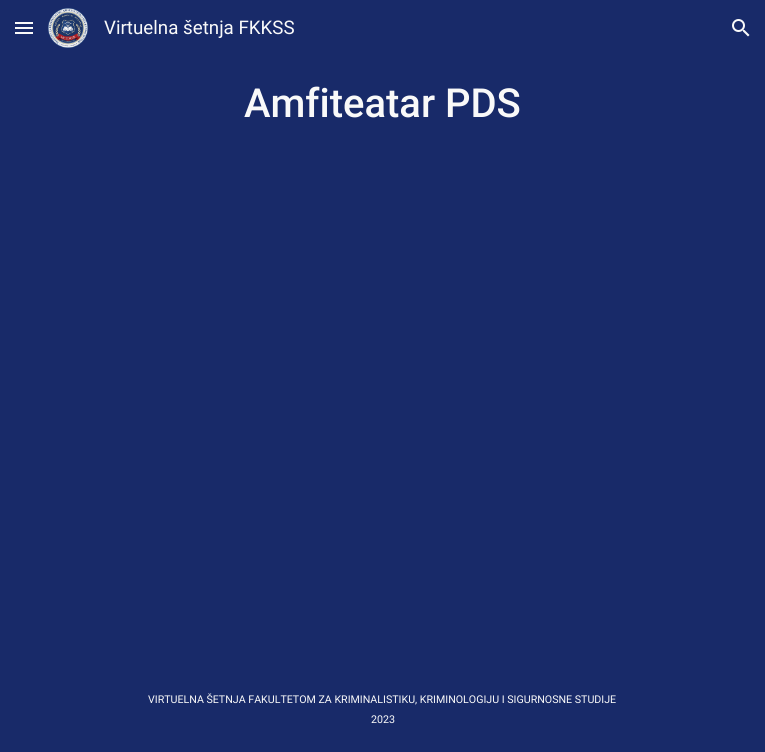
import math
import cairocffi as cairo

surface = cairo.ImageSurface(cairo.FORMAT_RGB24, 765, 752)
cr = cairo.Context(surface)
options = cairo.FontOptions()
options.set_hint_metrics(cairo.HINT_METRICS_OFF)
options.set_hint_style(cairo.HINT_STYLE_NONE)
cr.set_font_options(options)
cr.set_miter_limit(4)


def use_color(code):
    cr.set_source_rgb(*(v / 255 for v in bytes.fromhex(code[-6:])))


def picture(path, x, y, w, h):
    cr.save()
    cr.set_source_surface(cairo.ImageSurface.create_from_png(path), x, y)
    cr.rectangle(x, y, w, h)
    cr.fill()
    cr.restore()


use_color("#182a69")
cr.paint()
use_color("#f9f9f9")
cr.rectangle(15, 22, 18, 2)
cr.fill()
cr.rectangle(15, 27, 18, 2)
cr.fill()
cr.rectangle(15, 32, 18, 2)
cr.fill()
picture("img1.png", 48, 8, 40, 40)
cr.select_font_face("Roboto")
cr.set_font_size(18.75)
cr.move_to(104, 34)
cr.show_text("Virtuelna šetnja FKKSS")
picture("img2.png", 732, 19, 18, 18)
cr.select_font_face("Roboto Medium")
cr.set_font_size(40)
cr.move_to(244, 117)
cr.show_text("Amfiteatar PDS")
cr.select_font_face("Roboto")
cr.set_font_size(10.65)
cr.move_to(148, 703)
cr.show_text("VIRTUELNA ŠETNJA FAKULTETOM ZA KRIMINALISTIKU, KRIMINOLOGIJU I SIGURNOSNE STUDIJE")
cr.move_to(371, 723)
cr.show_text("2023")
surface.write_to_png("result.png")
